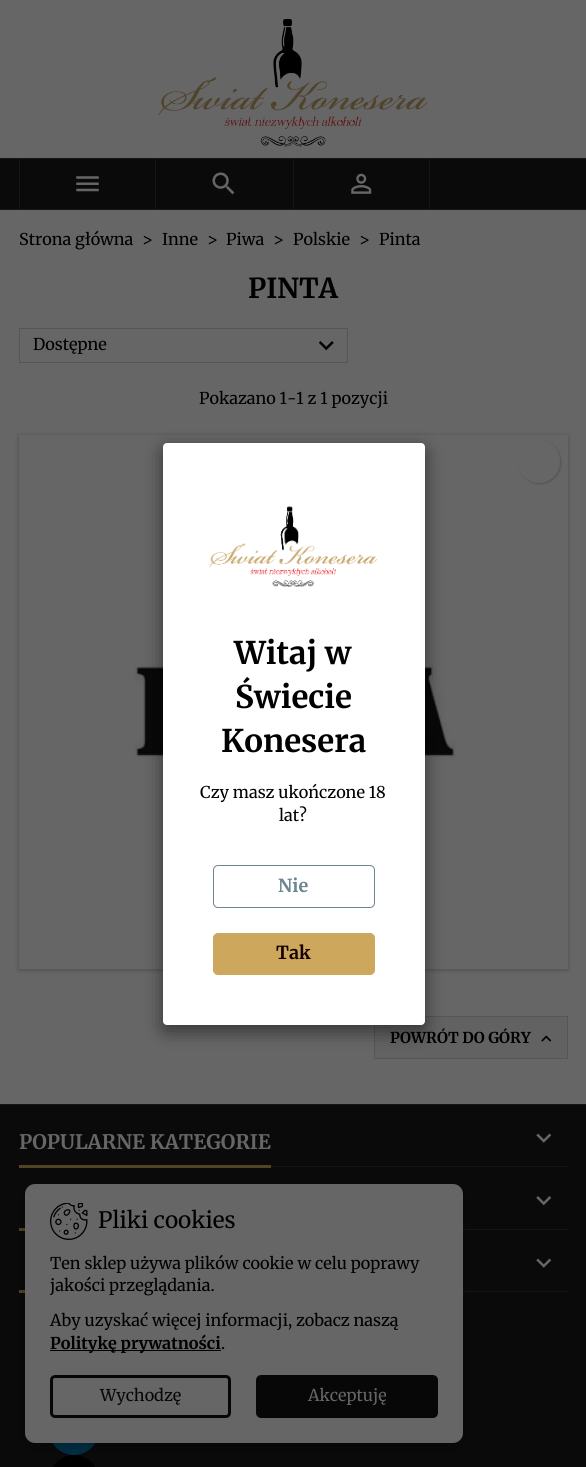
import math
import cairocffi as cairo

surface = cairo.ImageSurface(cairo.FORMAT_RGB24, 586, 1467)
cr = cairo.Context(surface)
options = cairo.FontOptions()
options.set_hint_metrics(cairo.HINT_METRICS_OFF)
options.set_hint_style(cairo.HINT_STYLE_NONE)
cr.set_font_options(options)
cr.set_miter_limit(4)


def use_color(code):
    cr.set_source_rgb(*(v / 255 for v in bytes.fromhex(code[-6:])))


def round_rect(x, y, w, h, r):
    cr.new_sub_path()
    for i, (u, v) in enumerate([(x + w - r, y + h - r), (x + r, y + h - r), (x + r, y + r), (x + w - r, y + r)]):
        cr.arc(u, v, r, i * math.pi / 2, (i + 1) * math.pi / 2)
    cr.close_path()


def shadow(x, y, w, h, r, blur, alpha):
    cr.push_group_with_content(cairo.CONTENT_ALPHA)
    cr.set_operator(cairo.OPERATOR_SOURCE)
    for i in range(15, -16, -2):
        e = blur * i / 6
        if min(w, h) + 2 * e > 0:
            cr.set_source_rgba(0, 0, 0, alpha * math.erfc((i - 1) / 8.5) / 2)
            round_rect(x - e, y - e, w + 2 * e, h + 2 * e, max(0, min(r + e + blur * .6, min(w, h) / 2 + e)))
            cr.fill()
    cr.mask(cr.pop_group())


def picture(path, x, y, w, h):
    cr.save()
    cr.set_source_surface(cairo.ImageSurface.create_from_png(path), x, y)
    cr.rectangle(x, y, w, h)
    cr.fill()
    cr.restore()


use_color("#666666")
cr.paint()
picture("img1.png", 158, 18, 270, 129)
use_color("#0b0a0b")
cr.rectangle(0, 159, 586, 50)
cr.fill()
use_color("#161616")
cr.rectangle(0, 158, 586, 1)
cr.fill()
cr.rectangle(0, 209, 586, 1)
cr.fill()
cr.rectangle(155, 159, 1, 50)
cr.fill()
cr.rectangle(19, 159, 1, 50)
cr.fill()
picture("img2.png", 76, 176, 23, 16)
cr.rectangle(293, 159, 1, 50)
cr.fill()
picture("img3.png", 212, 172, 23, 23)
cr.rectangle(429, 159, 1, 50)
cr.fill()
picture("img4.png", 351, 173, 21, 21)
cr.select_font_face("Merriweather")
cr.set_font_size(16.25)
use_color("#000000")
cr.move_to(19, 245)
cr.show_text("Strona główna")
cr.move_to(142, 245)
cr.show_text(">")
cr.move_to(162, 245)
cr.show_text("Inne")
cr.move_to(207, 245)
cr.show_text(">")
cr.move_to(226, 245)
cr.show_text("Piwa")
cr.move_to(273, 245)
cr.show_text(">")
cr.move_to(293, 245)
cr.show_text("Polskie")
cr.move_to(359, 245)
cr.show_text(">")
cr.move_to(379, 245)
cr.show_text("Pinta")
cr.select_font_face("Merriweather", cairo.FONT_SLANT_NORMAL, cairo.FONT_WEIGHT_BOLD)
cr.set_font_size(27.5)
cr.move_to(248, 298)
cr.show_text("PINTA")
cr.rectangle(19.5, 328.5, 328, 34)
use_color("#565555")
cr.set_line_width(1)
cr.stroke()
cr.select_font_face("Merriweather")
cr.set_font_size(16.25)
use_color("#000000")
cr.move_to(33, 350)
cr.show_text("Dostępne")
picture("img5.png", 318, 341, 16, 10)
cr.move_to(199, 404)
cr.show_text("Pokazano 1-1 z 1 pozycji")
use_color("#000000")
shadow(19, 436, 549, 534, 0, 2.5, 0.24)
use_color("#666666")
cr.rectangle(19, 435, 549, 534)
cr.fill()
use_color("#000000")
shadow(519, 441, 42, 43, 21, 1, 0.2)
use_color("#666666")
round_rect(518, 440, 42, 43, 21)
cr.fill()
picture("img6.png", 134, 468, 322, 323)
use_color("#626262")
cr.rectangle(374.5, 1016.5, 193, 42)
cr.fill_preserve()
use_color("#565656")
cr.stroke()
cr.select_font_face("Merriweather", cairo.FONT_SLANT_NORMAL, cairo.FONT_WEIGHT_BOLD)
cr.set_font_size(15)
use_color("#000000")
cr.move_to(390, 1043)
cr.show_text("POWRÓT DO GÓRY")
picture("img7.png", 541, 1035, 11, 7)
use_color("#0b0a0b")
cr.rectangle(0, 1105, 586, 362)
cr.fill()
use_color("#161616")
cr.rectangle(0, 1104, 586, 1)
cr.fill()
use_color("#000000")
shadow(163, 449, 262, 582, 4, 9.5, 0.5)
use_color("#ffffff")
round_rect(163, 443, 262, 582, 4)
cr.fill()
picture("img8.png", 209, 506, 169, 81)
cr.set_font_size(31.25)
use_color("#000000")
cr.move_to(234, 664)
cr.show_text("Witaj w")
cr.move_to(235, 708)
cr.show_text("Świecie")
cr.move_to(221, 752)
cr.show_text("Konesera")
cr.select_font_face("Merriweather")
cr.set_font_size(16.25)
cr.move_to(200, 798)
cr.show_text("Czy masz ukończone 18")
cr.move_to(279, 821)
cr.show_text("lat?")
round_rect(213.5, 865.5, 161, 42, 4.5)
use_color("#6c868e")
cr.stroke()
cr.select_font_face("Merriweather", cairo.FONT_SLANT_NORMAL, cairo.FONT_WEIGHT_BOLD)
cr.set_font_size(18)
cr.move_to(278, 892)
cr.show_text("Nie")
use_color("#cda85c")
round_rect(213.5, 933.5, 161, 41, 4.5)
cr.fill_preserve()
cr.stroke()
use_color("#150100")
cr.move_to(276, 959)
cr.show_text("Tak")
use_color("#161616")
cr.rectangle(271, 1166, 297, 1)
cr.fill()
use_color("#524325")
cr.rectangle(19, 1165, 252, 3)
cr.fill()
cr.set_font_size(20)
use_color("#666666")
cr.move_to(19, 1149)
cr.show_text("POPULARNE KATEGORIE")
picture("img9.png", 536, 1133, 16, 10)
use_color("#161616")
cr.rectangle(463, 1229, 105, 1)
cr.fill()
picture("img10.png", 536, 1196, 16, 10)
use_color("#524325")
cr.rectangle(19, 1228, 6, 3)
cr.fill()
use_color("#161616")
cr.rectangle(463, 1291, 105, 1)
cr.fill()
use_color("#524325")
cr.rectangle(19, 1290, 6, 3)
cr.fill()
use_color("#003048")
cr.arc(74, 1430, 25, 0, 2 * math.pi)
cr.fill()
use_color("#000000")
round_rect(49, 1455, 50, 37, 25)
cr.fill()
use_color("#000000")
shadow(25, 1189, 438, 259, 10, 6, 0.3)
use_color("#666666")
round_rect(25, 1184, 438, 259, 10)
cr.fill()
picture("img11.png", 50, 1203, 38, 37)
cr.select_font_face("Merriweather")
cr.set_font_size(22.5)
use_color("#000000")
cr.move_to(98, 1228)
cr.show_text("Pliki cookies")
cr.set_font_size(16.25)
cr.move_to(50, 1269)
cr.show_text("Ten sklep używa plików cookie w celu poprawy")
cr.move_to(50, 1291)
cr.show_text("jakości przeglądania.")
cr.move_to(50, 1326)
cr.show_text("Aby uzyskać więcej informacji, zobacz naszą")
cr.rectangle(50, 1350, 171, 1)
cr.fill()
cr.select_font_face("Merriweather", cairo.FONT_SLANT_NORMAL, cairo.FONT_WEIGHT_BOLD)
cr.move_to(50, 1349)
cr.show_text("Politykę prywatności")
cr.select_font_face("Merriweather")
cr.move_to(221, 1349)
cr.show_text(".")
round_rect(51.5, 1376.5, 178, 40, 3.5)
use_color("#070707")
cr.set_line_width(3)
cr.stroke()
cr.move_to(100, 1401)
cr.show_text("Wychodzę")
round_rect(257.5, 1376.5, 179, 40, 3.5)
cr.fill_preserve()
cr.stroke()
use_color("#666666")
cr.move_to(308, 1401)
cr.show_text("Akceptuję")
picture("img9.png", 536, 1258, 16, 10)
surface.write_to_png("result.png")
